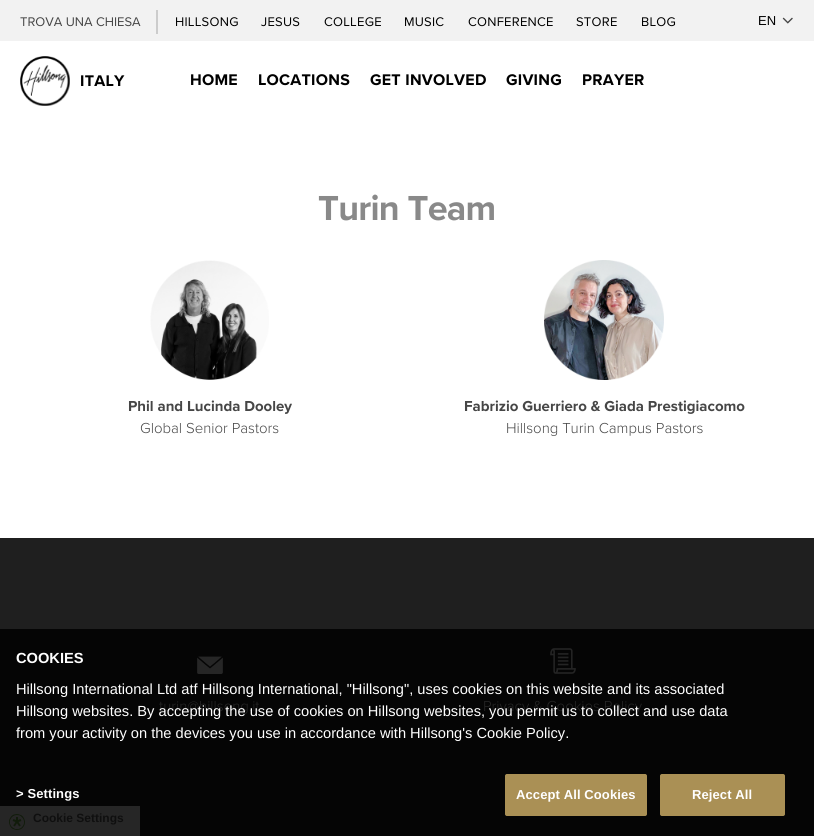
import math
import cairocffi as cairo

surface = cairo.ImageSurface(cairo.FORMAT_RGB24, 814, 836)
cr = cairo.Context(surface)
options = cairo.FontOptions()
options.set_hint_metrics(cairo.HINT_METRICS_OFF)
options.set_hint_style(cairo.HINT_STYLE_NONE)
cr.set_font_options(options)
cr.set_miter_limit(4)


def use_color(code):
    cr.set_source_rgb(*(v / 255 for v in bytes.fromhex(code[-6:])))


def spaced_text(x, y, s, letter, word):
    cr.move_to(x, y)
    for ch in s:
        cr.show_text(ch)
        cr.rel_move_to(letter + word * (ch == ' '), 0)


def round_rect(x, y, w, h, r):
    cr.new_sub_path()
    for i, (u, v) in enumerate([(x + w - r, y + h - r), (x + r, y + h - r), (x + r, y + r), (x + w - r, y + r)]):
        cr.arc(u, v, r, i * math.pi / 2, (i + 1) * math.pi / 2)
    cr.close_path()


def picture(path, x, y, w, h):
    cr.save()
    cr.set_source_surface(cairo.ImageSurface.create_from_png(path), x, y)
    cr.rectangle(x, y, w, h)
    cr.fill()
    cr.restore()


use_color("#ffffff")
cr.paint()
use_color("#f2f2f2")
cr.rectangle(0, 0, 814, 41)
cr.fill()
cr.select_font_face("Proxima Nova")
cr.set_font_size(13)
use_color("#464646")
cr.move_to(20, 26)
cr.show_text("TROVA UNA CHIESA")
use_color("#cccccc")
cr.rectangle(156, 10, 2, 24)
cr.fill()
use_color("#000000")
spaced_text(175, 26, "HILLSONG", 0.25, 0)
spaced_text(261, 26, "JESUS", 0.25, 0)
spaced_text(324, 26, "COLLEGE", 0.25, 0)
spaced_text(404, 26, "MUSIC", 0.25, 0)
spaced_text(468, 26, "CONFERENCE", 0.25, 0)
spaced_text(576, 26, "STORE", 0.25, 0)
spaced_text(641, 26, "BLOG", 0.25, 0)
cr.select_font_face("Liberation Sans")
cr.move_to(758, 25)
cr.show_text("EN")
picture("img1.png", 782, 17, 11, 7)
picture("img2.png", 20, 56, 50, 50)
cr.select_font_face("Proxima Nova", cairo.FONT_SLANT_NORMAL, cairo.FONT_WEIGHT_BOLD)
cr.set_font_size(16)
spaced_text(80, 86, "ITALY", 0.25, 0)
spaced_text(190, 85, "HOME", 0.25, 0)
spaced_text(258, 85, "LOCATIONS", 0.25, 0)
spaced_text(370, 85, "GET INVOLVED", 0.25, 0)
spaced_text(506, 85, "GIVING", 0.25, 0)
spaced_text(582, 85, "PRAYER", 0.25, 0)
cr.set_font_size(36)
use_color("#898989")
spaced_text(318, 220, "Turin Team", -0.75, 0)
picture("img3.png", 150, 260, 119, 120)
cr.set_font_size(15)
use_color("#464646")
cr.move_to(128, 411)
cr.show_text("Phil and Lucinda Dooley")
cr.select_font_face("Proxima Nova Light")
cr.move_to(140, 433)
cr.show_text("Global Senior Pastors")
picture("img4.png", 544, 260, 120, 120)
cr.select_font_face("Proxima Nova", cairo.FONT_SLANT_NORMAL, cairo.FONT_WEIGHT_BOLD)
cr.move_to(464, 411)
cr.show_text("Fabrizio Guerriero & Giada Prestigiacomo")
cr.select_font_face("Proxima Nova Light")
cr.move_to(506, 433)
cr.show_text("Hillsong Turin Campus Pastors")
use_color("#1f1f1f")
cr.rectangle(0, 538, 814, 91)
cr.fill()
use_color("#050505")
cr.rectangle(0, 629, 814, 207)
cr.fill()
picture("img5.png", 197, 656, 26, 18)
use_color("#262626")
cr.move_to(159, 711)
cr.show_text("turin@hillsong.it")
picture("img6.png", 550, 648, 26, 26)
cr.move_to(483, 711)
cr.show_text("Privacy & Cookies Policy")
cr.rectangle(0, 806, 140, 30)
cr.fill()
picture("img7.png", 9, 814, 16, 16)
cr.select_font_face("Liberation Sans", cairo.FONT_SLANT_NORMAL, cairo.FONT_WEIGHT_BOLD)
cr.set_font_size(12)
use_color("#0f0f0f")
cr.move_to(33, 822)
cr.show_text("Cookie Settings")
cr.set_font_size(14.65)
use_color("#ffffff")
cr.move_to(16, 663)
cr.show_text("COOKIES")
cr.select_font_face("Liberation Sans")
cr.move_to(16, 694)
cr.show_text("Hillsong International Ltd atf Hillsong International, \"Hillsong\", uses cookies on this website and its associated")
cr.move_to(16, 716)
cr.show_text("Hillsong websites. By accepting the use of cookies on Hillsong websites, you permit us to collect and use data")
cr.move_to(16, 738)
cr.show_text("from your activity on the devices you use in accordance with Hillsong's Cookie Policy.")
cr.select_font_face("Liberation Sans", cairo.FONT_SLANT_NORMAL, cairo.FONT_WEIGHT_BOLD)
cr.set_font_size(13)
spaced_text(16, 798, "> Settings", 0.1, 0)
use_color("#aa9055")
round_rect(505.5, 774.5, 141, 41, 1.5)
cr.fill_preserve()
cr.set_line_width(1)
cr.stroke()
use_color("#ffffff")
spaced_text(516, 799, "Accept All Cookies", 0.1, 0)
use_color("#aa9055")
round_rect(660.5, 774.5, 124, 41, 1.5)
cr.fill_preserve()
cr.stroke()
use_color("#ffffff")
spaced_text(692, 799, "Reject All", 0.1, 0)
surface.write_to_png("result.png")
